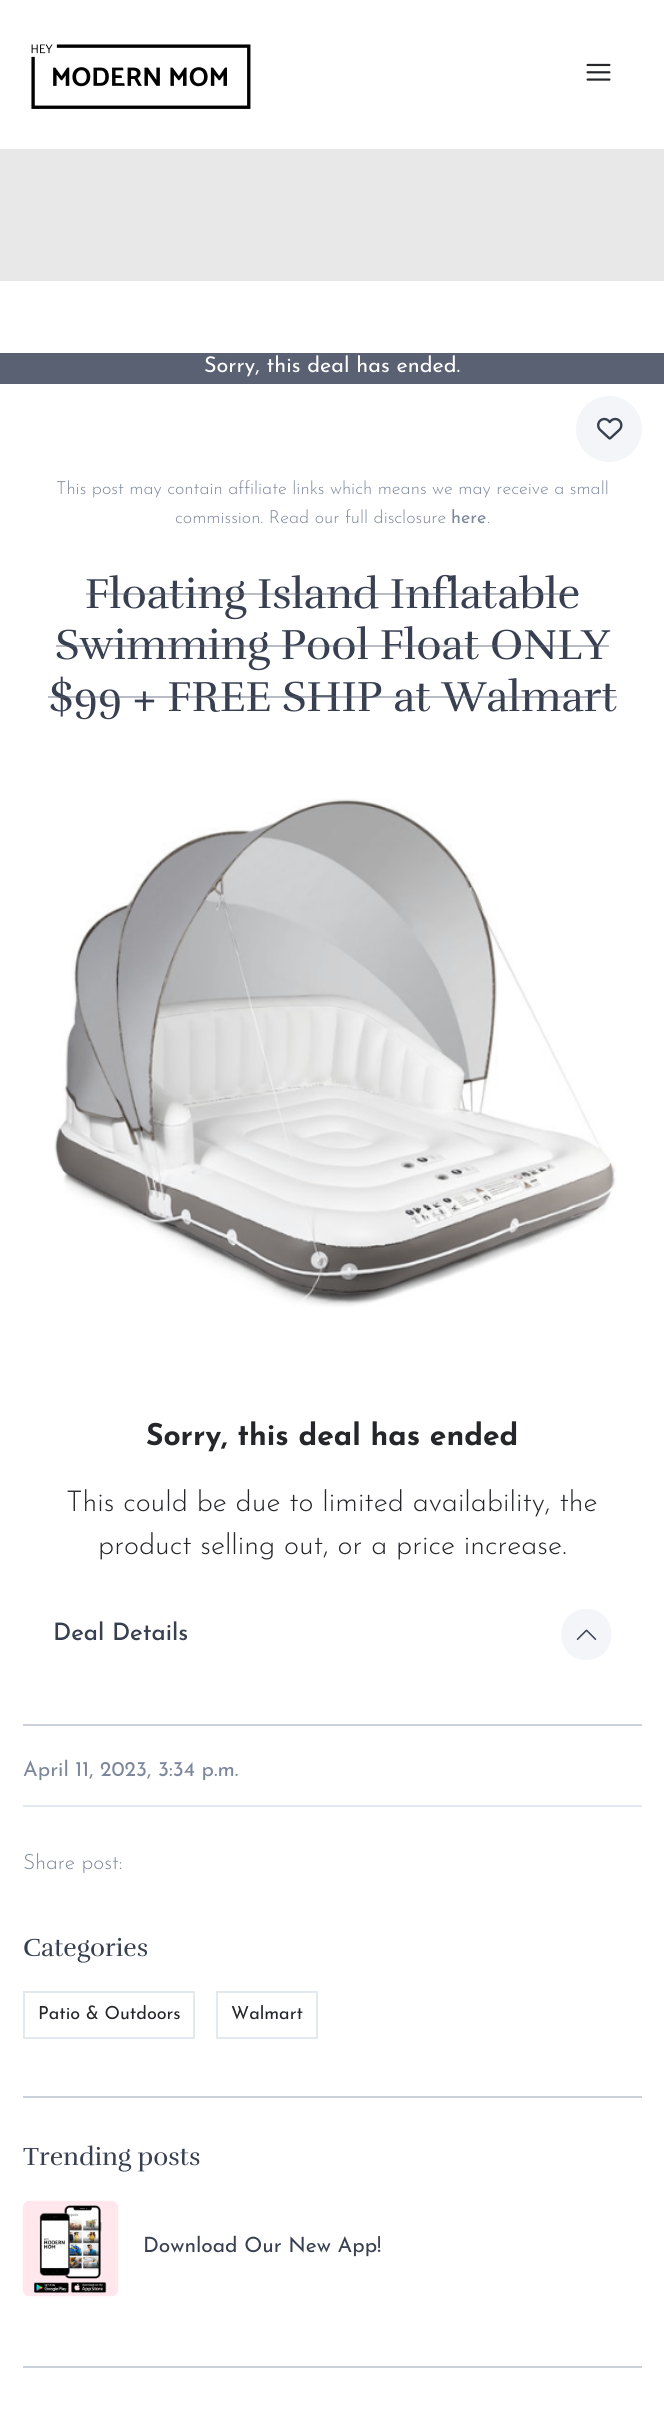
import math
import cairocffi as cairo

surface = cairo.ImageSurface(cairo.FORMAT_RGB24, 664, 2426)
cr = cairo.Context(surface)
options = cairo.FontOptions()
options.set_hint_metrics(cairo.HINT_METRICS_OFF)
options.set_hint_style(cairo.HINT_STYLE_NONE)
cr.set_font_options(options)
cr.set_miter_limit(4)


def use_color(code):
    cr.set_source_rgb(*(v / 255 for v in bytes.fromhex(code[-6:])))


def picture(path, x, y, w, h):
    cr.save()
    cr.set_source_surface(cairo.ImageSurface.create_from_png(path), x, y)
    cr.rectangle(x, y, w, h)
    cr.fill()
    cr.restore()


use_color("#ffffff")
cr.paint()
picture("img1.png", 31, 44, 220, 65)
picture("img2.png", 586, 63, 25, 18)
use_color("#e8e8e8")
cr.rectangle(0, 149, 664, 132)
cr.fill()
use_color("#5a6173")
cr.rectangle(0, 353, 664, 31)
cr.fill()
cr.select_font_face("Josefin Sans")
cr.set_font_size(21.6)
use_color("#ffffff")
cr.move_to(204, 372)
cr.show_text("Sorry, this deal has ended.")
use_color("#f3f5f9")
cr.new_path()
cr.arc(609, 429, 33, 0, 2 * math.pi)
cr.fill()
picture("img3.png", 597, 417, 26, 23)
cr.select_font_face("Josefin Sans Light")
cr.set_font_size(18)
use_color("#7d879c")
cr.move_to(56, 494)
cr.show_text("This post may contain affiliate links which means we may receive a small")
cr.move_to(175, 523)
cr.show_text("commission. Read our full disclosure")
cr.select_font_face("Josefin Sans")
cr.move_to(451, 523)
cr.show_text("here")
cr.select_font_face("Josefin Sans Light")
cr.move_to(487, 523)
cr.show_text(".")
cr.select_font_face("Rufina")
cr.set_font_size(43)
use_color("#373f50")
cr.move_to(85, 608)
cr.show_text("Floating Island Inflatable")
cr.set_source_rgba(0.353, 0.38, 0.451, 0.42)
cr.rectangle(86, 593, 493, 2)
cr.fill()
use_color("#373f50")
cr.move_to(55, 659)
cr.show_text("Swimming Pool Float ONLY")
cr.set_source_rgba(0.353, 0.38, 0.451, 0.42)
cr.rectangle(56, 645, 553, 2)
cr.fill()
use_color("#373f50")
cr.move_to(49, 711)
cr.show_text("$99 + FREE SHIP at Walmart")
cr.set_source_rgba(0.353, 0.38, 0.451, 0.42)
cr.rectangle(48, 696, 569, 2)
cr.fill()
picture("img4.png", 54, 798, 563, 509)
cr.select_font_face("Josefin Sans", cairo.FONT_SLANT_NORMAL, cairo.FONT_WEIGHT_BOLD)
cr.set_font_size(30)
use_color("#242629")
cr.move_to(146, 1445)
cr.show_text("Sorry, this deal has ended")
cr.select_font_face("Josefin Sans Light")
cr.set_font_size(28.75)
cr.move_to(66, 1511)
cr.show_text("This could be due to limited availability, the")
cr.move_to(98, 1554)
cr.show_text("product selling out, or a price increase.")
cr.select_font_face("Josefin Sans Medium")
cr.set_font_size(24)
use_color("#373f50")
cr.move_to(53, 1640)
cr.show_text("Deal Details")
use_color("#f3f5f9")
cr.new_path()
cr.move_to(586, 1660)
cr.curve_to(553, 1660, 553, 1609, 586, 1609)
cr.curve_to(620, 1609, 620, 1660, 586, 1660)
cr.close_path()
cr.fill()
picture("img5.png", 576, 1629, 21, 11)
use_color("#ccd0d9")
cr.rectangle(23, 1724, 619, 2)
cr.fill()
cr.select_font_face("Josefin Sans")
cr.set_font_size(21)
use_color("#7d879c")
cr.move_to(23, 1776)
cr.show_text("April 11, 2023, 3:34 p.m.")
use_color("#e3e9ef")
cr.rectangle(23, 1805, 619, 2)
cr.fill()
cr.select_font_face("Josefin Sans Light")
use_color("#7d879c")
cr.move_to(23, 1869)
cr.show_text("Share post:")
use_color("#ccd0d9")
cr.rectangle(23, 2096, 619, 2)
cr.fill()
cr.select_font_face("Rufina")
cr.set_font_size(25.5)
use_color("#373f50")
cr.move_to(23, 1956)
cr.show_text("Categories")
cr.rectangle(24, 1992, 170, 46)
use_color("#e3e9ef")
cr.stroke()
cr.select_font_face("Josefin Sans")
cr.set_font_size(18)
use_color("#242629")
cr.move_to(38, 2019)
cr.show_text("Patio & Outdoors")
cr.rectangle(217, 1992, 100, 46)
use_color("#e3e9ef")
cr.stroke()
use_color("#242629")
cr.move_to(231, 2019)
cr.show_text("Walmart")
use_color("#ccd0d9")
cr.rectangle(23, 2366, 619, 2)
cr.fill()
cr.select_font_face("Rufina")
cr.set_font_size(25.5)
use_color("#373f50")
cr.move_to(23, 2165)
cr.show_text("Trending posts")
picture("img6.png", 22, 2200, 97, 97)
cr.select_font_face("Josefin Sans")
cr.set_font_size(21)
cr.move_to(143, 2252)
cr.show_text("Download Our New App!")
surface.write_to_png("result.png")
